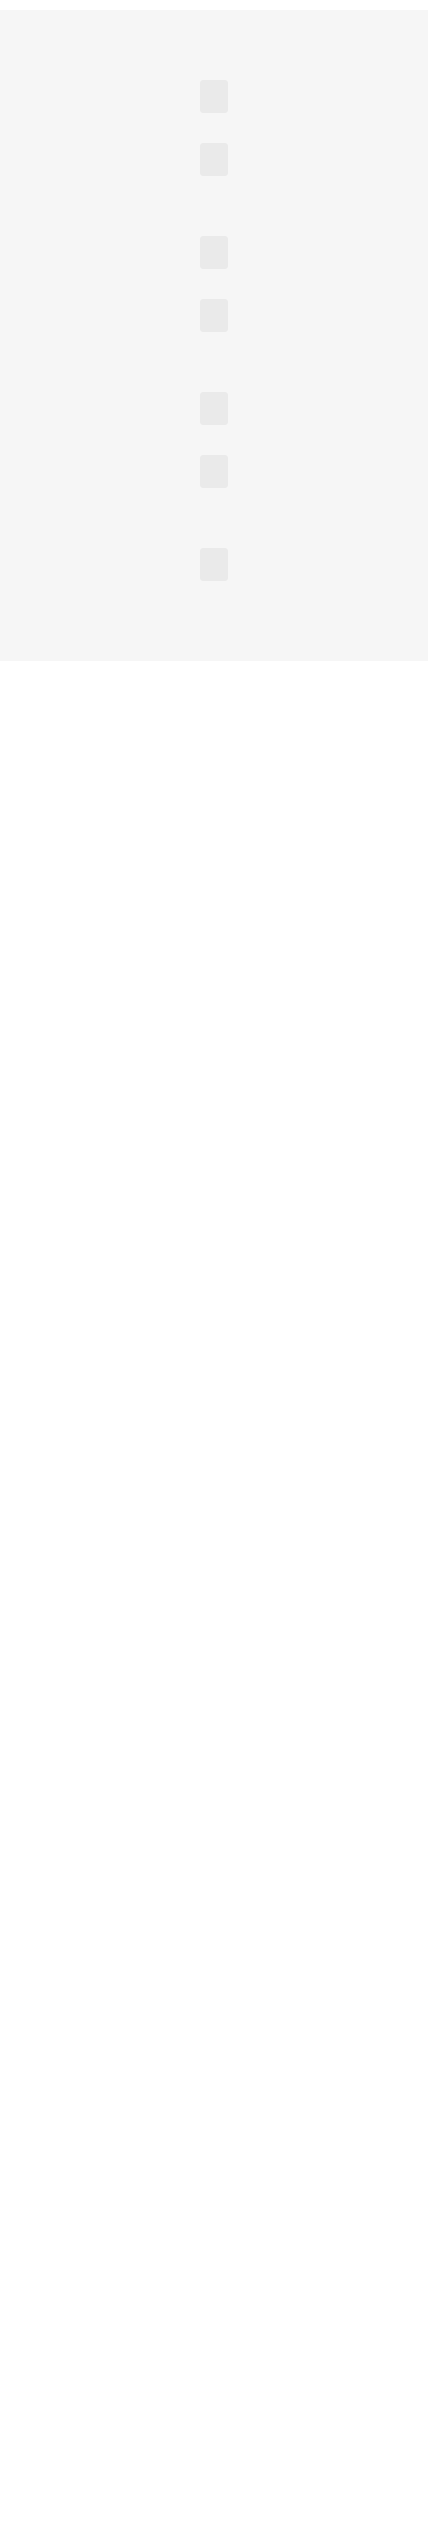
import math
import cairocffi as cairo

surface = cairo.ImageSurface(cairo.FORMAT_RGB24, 428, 2534)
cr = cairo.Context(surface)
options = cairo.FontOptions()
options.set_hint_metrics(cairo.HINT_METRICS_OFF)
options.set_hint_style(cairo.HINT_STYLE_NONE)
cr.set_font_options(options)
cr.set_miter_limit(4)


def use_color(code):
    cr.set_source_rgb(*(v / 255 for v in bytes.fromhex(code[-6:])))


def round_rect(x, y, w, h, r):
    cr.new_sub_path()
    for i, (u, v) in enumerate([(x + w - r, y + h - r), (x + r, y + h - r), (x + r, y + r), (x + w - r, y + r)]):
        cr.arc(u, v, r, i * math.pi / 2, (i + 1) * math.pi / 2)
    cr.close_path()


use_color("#ffffff")
cr.paint()
use_color("#f6f6f6")
cr.rectangle(0, 10, 428, 651)
cr.fill()
use_color("#eaeaea")
round_rect(200, 80, 28, 33, 3)
cr.fill()
round_rect(200, 143, 28, 33, 3)
cr.fill()
round_rect(200, 236, 28, 33, 3)
cr.fill()
round_rect(200, 299, 28, 33, 3)
cr.fill()
round_rect(200, 392, 28, 33, 3)
cr.fill()
round_rect(200, 455, 28, 33, 3)
cr.fill()
round_rect(200, 548, 28, 33, 3)
cr.fill()
surface.write_to_png("result.png")
